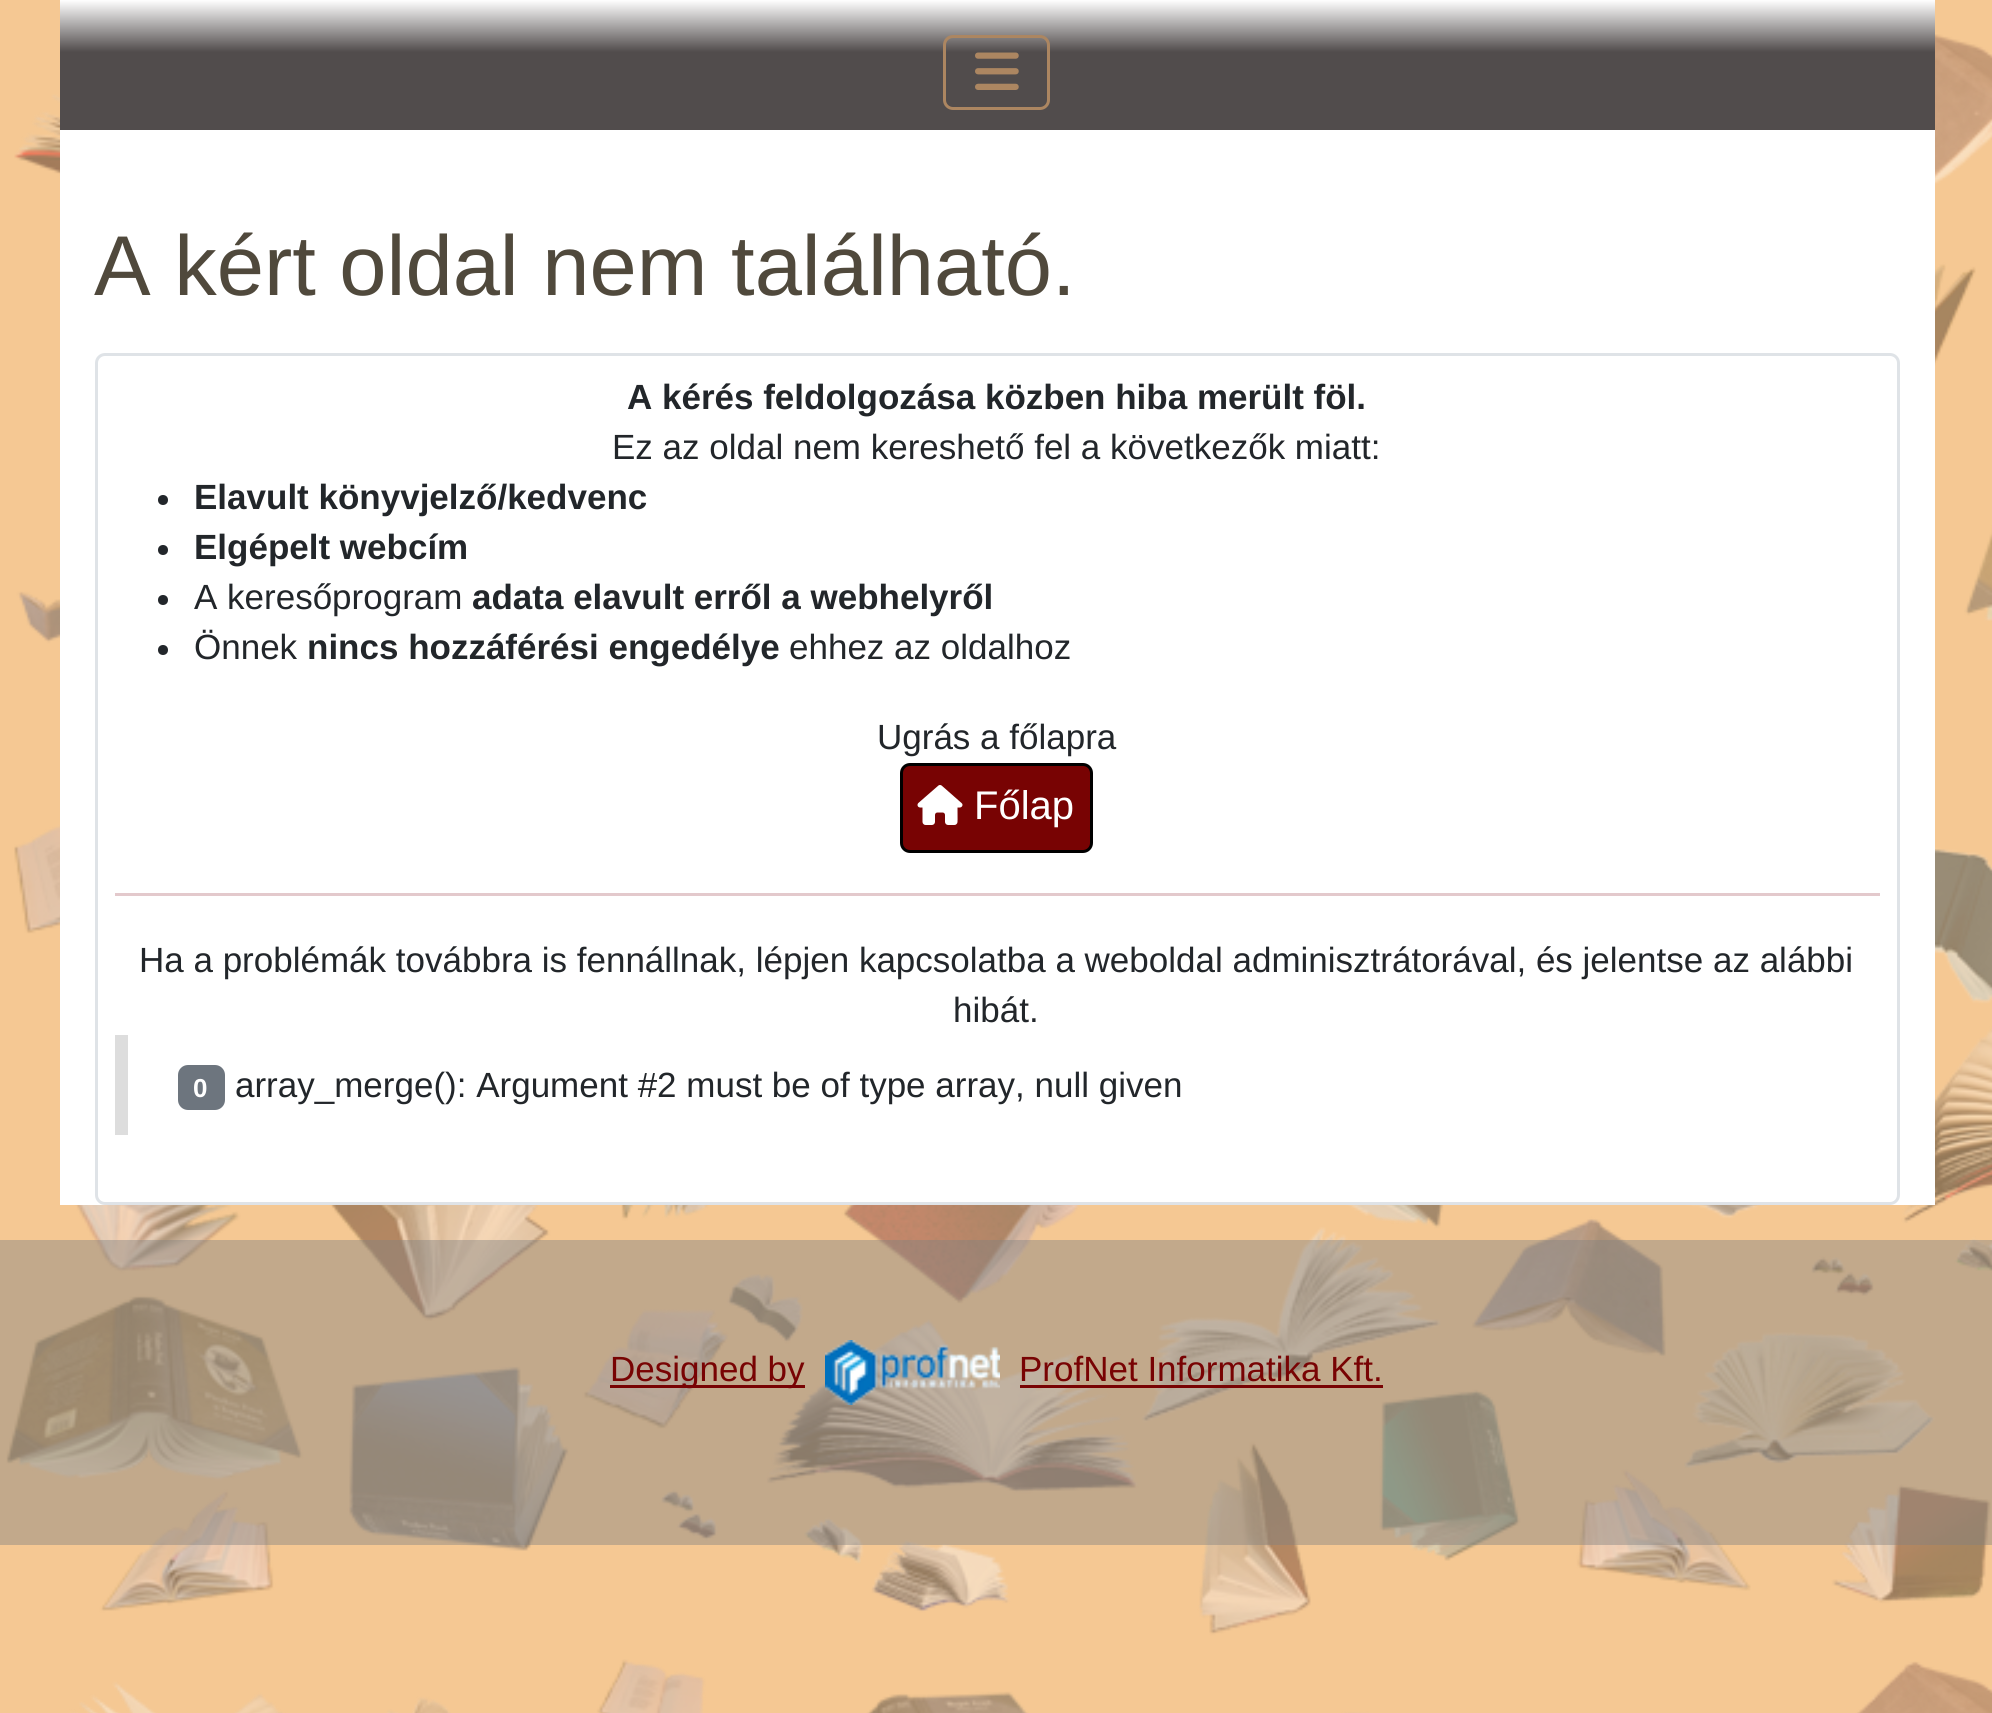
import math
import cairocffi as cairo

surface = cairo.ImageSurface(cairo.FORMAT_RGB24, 1992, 1713)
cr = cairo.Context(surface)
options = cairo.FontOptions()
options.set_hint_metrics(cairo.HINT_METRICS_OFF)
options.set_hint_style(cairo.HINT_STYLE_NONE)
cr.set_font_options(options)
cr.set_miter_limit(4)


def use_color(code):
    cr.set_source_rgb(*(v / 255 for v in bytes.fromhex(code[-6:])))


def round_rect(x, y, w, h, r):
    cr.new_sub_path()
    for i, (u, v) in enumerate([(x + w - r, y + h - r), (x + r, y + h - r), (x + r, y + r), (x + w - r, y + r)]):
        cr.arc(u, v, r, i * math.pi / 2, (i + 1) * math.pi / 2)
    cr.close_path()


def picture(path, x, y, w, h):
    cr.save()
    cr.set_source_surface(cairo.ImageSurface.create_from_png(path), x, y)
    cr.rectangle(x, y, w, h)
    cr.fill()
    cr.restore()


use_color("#f5c893")
cr.paint()
picture("img1.png", 6, 34, 1986, 1679)
gradient = cairo.LinearGradient(998, 0, 998, 130)
gradient.add_color_stop_rgba(0, 1, 1, 1, 1)
gradient.add_color_stop_rgba(0.4, 0.318, 0.298, 0.298, 1)
cr.set_source(gradient)
cr.rectangle(60, 0, 1875, 130)
cr.fill()
round_rect(944.5, 36.5, 104, 72, 8.5)
use_color("#ac8661")
cr.set_line_width(3)
cr.stroke()
picture("img2.png", 975, 52, 44, 38)
use_color("#ffffff")
cr.rectangle(60, 130, 1875, 1075)
cr.fill()
cr.select_font_face("Liberation Sans")
cr.set_font_size(84.9)
use_color("#50493c")
cr.move_to(94, 295)
cr.show_text("A kért oldal nem található.")
round_rect(96.5, 354.5, 1802, 849, 8.5)
use_color("#dfe3e7")
cr.stroke()
cr.select_font_face("Liberation Sans", cairo.FONT_SLANT_NORMAL, cairo.FONT_WEIGHT_BOLD)
cr.set_font_size(35)
use_color("#22262a")
cr.move_to(627, 409)
cr.show_text("A kérés feldolgozása közben hiba merült föl.")
cr.select_font_face("Liberation Sans")
cr.move_to(612, 459)
cr.show_text("Ez az oldal nem kereshető fel a következők miatt:")
cr.new_path()
cr.arc(163, 500, 5, 0, 2 * math.pi)
cr.fill()
cr.select_font_face("Liberation Sans", cairo.FONT_SLANT_NORMAL, cairo.FONT_WEIGHT_BOLD)
cr.move_to(194, 509)
cr.show_text("Elavult könyvjelző/kedvenc")
cr.new_path()
cr.arc(163, 550, 5, 0, 2 * math.pi)
cr.fill()
cr.move_to(194, 559)
cr.show_text("Elgépelt webcím")
cr.new_path()
cr.arc(163, 600, 5, 0, 2 * math.pi)
cr.fill()
cr.select_font_face("Liberation Sans")
cr.move_to(194, 609)
cr.show_text("A keresőprogram")
cr.select_font_face("Liberation Sans", cairo.FONT_SLANT_NORMAL, cairo.FONT_WEIGHT_BOLD)
cr.move_to(472, 609)
cr.show_text("adata elavult erről a webhelyről")
cr.new_path()
cr.arc(163, 650, 5, 0, 2 * math.pi)
cr.fill()
cr.select_font_face("Liberation Sans")
cr.move_to(194, 659)
cr.show_text("Önnek")
cr.select_font_face("Liberation Sans", cairo.FONT_SLANT_NORMAL, cairo.FONT_WEIGHT_BOLD)
cr.move_to(307, 659)
cr.show_text("nincs hozzáférési engedélye")
cr.select_font_face("Liberation Sans")
cr.move_to(789, 659)
cr.show_text("ehhez az oldalhoz")
cr.move_to(877, 749)
cr.show_text("Ugrás a főlapra")
use_color("#780303")
round_rect(901.5, 764.5, 190, 87, 8.5)
cr.fill_preserve()
use_color("#000000")
cr.stroke()
picture("img3.png", 917, 785, 46, 40)
cr.set_font_size(40)
use_color("#ffffff")
cr.move_to(974, 819)
cr.show_text("Főlap")
use_color("#e3c9cc")
cr.rectangle(115, 893, 1765, 3)
cr.fill()
cr.set_font_size(35)
use_color("#22262a")
cr.move_to(139, 972)
cr.show_text("Ha a problémák továbbra is fennállnak, lépjen kapcsolatba a weboldal adminisztrátorával, és jelentse az alábbi")
cr.move_to(953, 1022)
cr.show_text("hibát.")
use_color("#dddddd")
cr.rectangle(115, 1035, 13, 100)
cr.fill()
use_color("#6d757e")
round_rect(178, 1065, 47, 45, 10)
cr.fill()
cr.select_font_face("Liberation Sans", cairo.FONT_SLANT_NORMAL, cairo.FONT_WEIGHT_BOLD)
cr.set_font_size(26)
use_color("#ffffff")
cr.move_to(193, 1097)
cr.show_text("0")
cr.select_font_face("Liberation Sans")
cr.set_font_size(35)
use_color("#22262a")
cr.move_to(235, 1097)
cr.show_text("array_merge(): Argument #2 must be of type array, null given")
cr.set_source_rgba(0.502, 0.502, 0.502, 0.43)
cr.rectangle(0, 1240, 1992, 305)
cr.fill()
use_color("#780303")
cr.rectangle(610, 1385, 195, 3)
cr.fill()
cr.move_to(610, 1381)
cr.show_text("Designed by")
picture("img4.png", 825, 1340, 175, 65)
cr.move_to(1019, 1381)
cr.show_text("ProfNet Informatika Kft.")
cr.rectangle(1020, 1385, 363, 3)
cr.fill()
surface.write_to_png("result.png")
